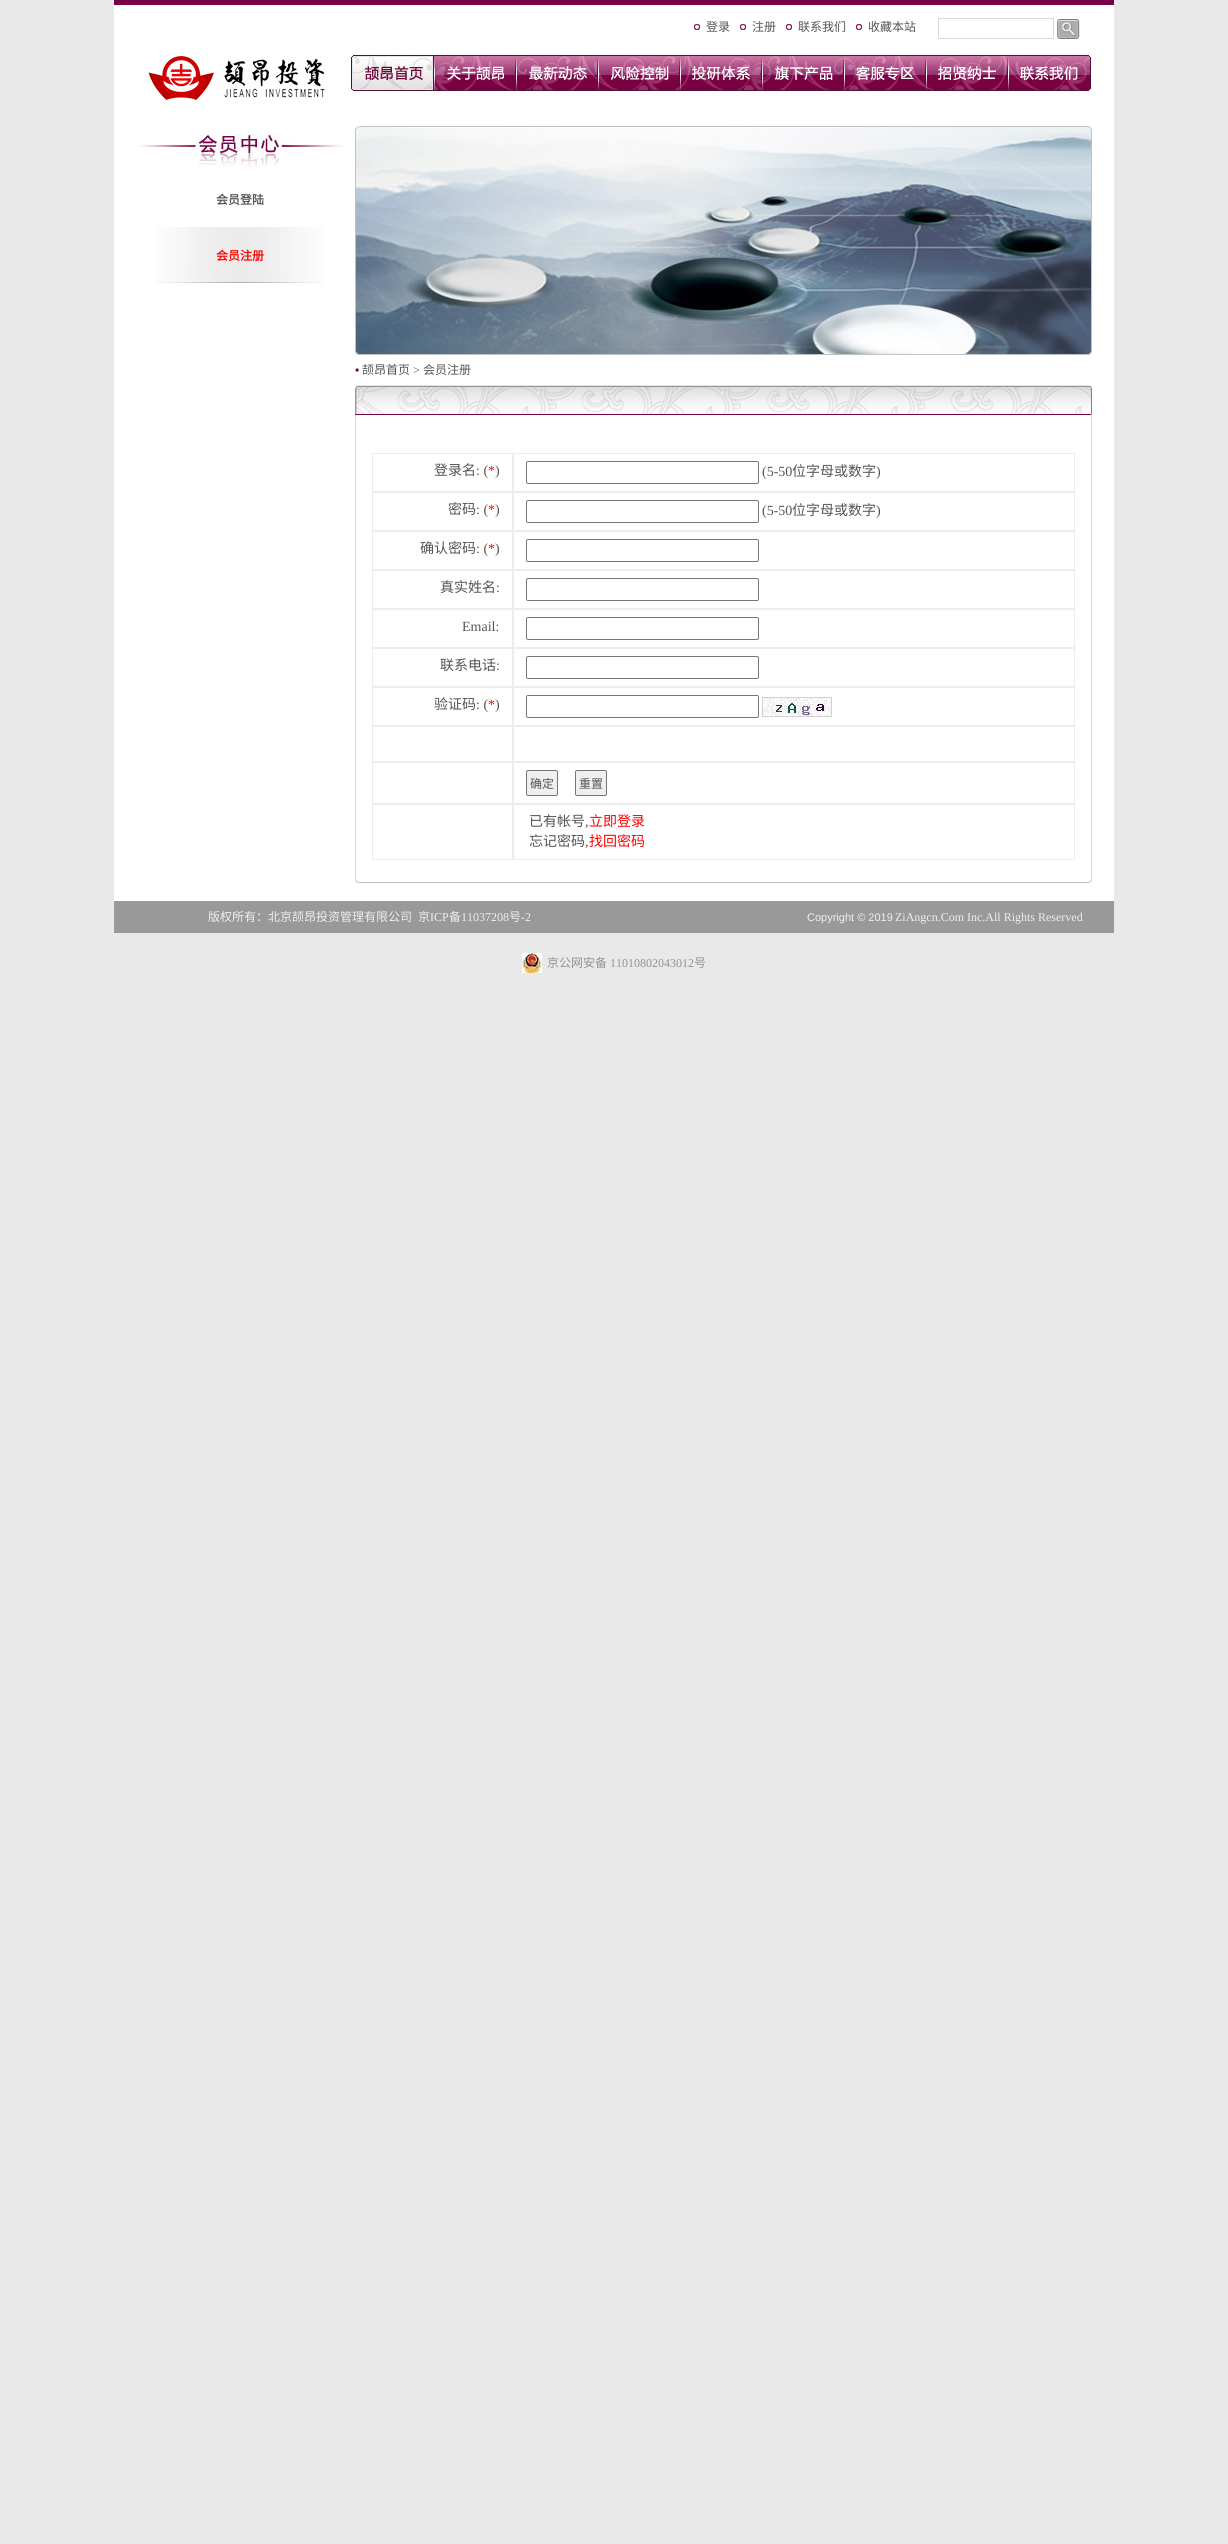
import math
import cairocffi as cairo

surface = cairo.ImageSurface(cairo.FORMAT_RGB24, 1228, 2544)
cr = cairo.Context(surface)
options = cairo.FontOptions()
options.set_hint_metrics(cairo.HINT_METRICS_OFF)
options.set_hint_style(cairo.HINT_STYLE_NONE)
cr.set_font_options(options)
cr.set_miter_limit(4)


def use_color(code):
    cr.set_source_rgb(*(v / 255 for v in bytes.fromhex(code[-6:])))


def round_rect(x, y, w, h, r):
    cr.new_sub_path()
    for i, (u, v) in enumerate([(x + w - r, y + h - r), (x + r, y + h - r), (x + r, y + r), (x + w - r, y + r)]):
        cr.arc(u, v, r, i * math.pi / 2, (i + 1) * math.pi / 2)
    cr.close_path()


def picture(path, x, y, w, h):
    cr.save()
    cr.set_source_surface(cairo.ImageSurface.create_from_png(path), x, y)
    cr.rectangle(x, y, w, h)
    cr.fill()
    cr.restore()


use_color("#e9e9e9")
cr.paint()
use_color("#ffffff")
cr.rectangle(114, 5, 1000, 896)
cr.fill()
use_color("#750044")
cr.rectangle(114, 0, 1000, 5)
cr.fill()
picture("img1.png", 694, 24, 6, 6)
cr.select_font_face("Noto Sans CJK SC")
cr.set_font_size(12)
use_color("#545454")
cr.move_to(706, 31)
cr.show_text("登录")
picture("img1.png", 740, 24, 6, 6)
cr.move_to(752, 31)
cr.show_text("注册")
picture("img1.png", 786, 24, 6, 6)
cr.move_to(798, 31)
cr.show_text("联系我们")
picture("img1.png", 856, 24, 6, 6)
cr.move_to(868, 31)
cr.show_text("收藏本站")
cr.rectangle(938.5, 18.5, 115, 20)
use_color("#dadada")
cr.set_line_width(1)
cr.stroke()
picture("img2.png", 1057, 19, 23, 20)
picture("img3.png", 148, 55, 177, 45)
picture("img4.png", 351, 55, 83, 36)
picture("img5.png", 434, 55, 82, 36)
picture("img6.png", 516, 55, 82, 36)
picture("img7.png", 598, 55, 82, 36)
picture("img8.png", 680, 55, 82, 36)
picture("img9.png", 762, 55, 82, 36)
picture("img10.png", 844, 55, 82, 36)
picture("img11.png", 926, 55, 82, 36)
picture("img12.png", 1008, 55, 83, 36)
picture("img13.png", 139, 134, 204, 32)
cr.select_font_face("Noto Sans CJK SC", cairo.FONT_SLANT_NORMAL, cairo.FONT_WEIGHT_BOLD)
use_color("#545454")
cr.move_to(216, 204)
cr.show_text("会员登陆")
picture("img14.png", 156, 227, 167, 56)
use_color("#ff0000")
cr.move_to(216, 260)
cr.show_text("会员注册")
picture("img15.png", 355, 126, 737, 229)
cr.select_font_face("Liberation Serif", cairo.FONT_SLANT_NORMAL, cairo.FONT_WEIGHT_BOLD)
use_color("#770044")
cr.move_to(355, 374)
cr.show_text("•")
cr.select_font_face("Noto Sans CJK SC")
use_color("#545454")
cr.move_to(362, 374)
cr.show_text("颉昂首页")
cr.select_font_face("Liberation Serif")
cr.move_to(413, 374)
cr.show_text(">")
cr.select_font_face("Noto Sans CJK SC")
cr.move_to(423, 374)
cr.show_text("会员注册")
picture("img16.png", 355, 385, 737, 30)
use_color("#d9d9d9")
cr.rectangle(1091, 415, 1, 465)
cr.fill()
cr.rectangle(355, 415, 1, 465)
cr.fill()
cr.rectangle(372.5, 453.5, 140, 38)
use_color("#ededed")
cr.stroke()
cr.set_font_size(14)
use_color("#545454")
cr.move_to(434, 475)
cr.show_text("登录名")
cr.select_font_face("Liberation Serif")
cr.move_to(476, 475)
cr.show_text(": (")
use_color("#ff0000")
cr.move_to(488, 475)
cr.show_text("*")
use_color("#545454")
cr.move_to(495, 475)
cr.show_text(")")
cr.rectangle(513.5, 453.5, 561, 38)
use_color("#ededed")
cr.stroke()
round_rect(526.5, 461.5, 232, 22, 1.5)
use_color("#767676")
cr.stroke()
use_color("#545454")
cr.move_to(762, 476)
cr.show_text("(5-50")
cr.select_font_face("Noto Sans CJK SC")
cr.move_to(792, 476)
cr.show_text("位字母或数字")
cr.select_font_face("Liberation Serif")
cr.move_to(876, 476)
cr.show_text(")")
cr.rectangle(372.5, 492.5, 140, 38)
use_color("#ededed")
cr.stroke()
cr.select_font_face("Noto Sans CJK SC")
use_color("#545454")
cr.move_to(448, 514)
cr.show_text("密码")
cr.select_font_face("Liberation Serif")
cr.move_to(476, 514)
cr.show_text(": (")
use_color("#ff0000")
cr.move_to(488, 514)
cr.show_text("*")
use_color("#545454")
cr.move_to(495, 514)
cr.show_text(")")
cr.rectangle(513.5, 492.5, 561, 38)
use_color("#ededed")
cr.stroke()
round_rect(526.5, 500.5, 232, 22, 1.5)
use_color("#767676")
cr.stroke()
use_color("#545454")
cr.move_to(762, 515)
cr.show_text("(5-50")
cr.select_font_face("Noto Sans CJK SC")
cr.move_to(792, 515)
cr.show_text("位字母或数字")
cr.select_font_face("Liberation Serif")
cr.move_to(876, 515)
cr.show_text(")")
cr.rectangle(372.5, 531.5, 140, 38)
use_color("#ededed")
cr.stroke()
cr.select_font_face("Noto Sans CJK SC")
use_color("#545454")
cr.move_to(420, 553)
cr.show_text("确认密码")
cr.select_font_face("Liberation Serif")
cr.move_to(476, 553)
cr.show_text(": (")
use_color("#ff0000")
cr.move_to(488, 553)
cr.show_text("*")
use_color("#545454")
cr.move_to(495, 553)
cr.show_text(")")
cr.rectangle(513.5, 531.5, 561, 38)
use_color("#ededed")
cr.stroke()
round_rect(526.5, 539.5, 232, 22, 1.5)
use_color("#767676")
cr.stroke()
cr.rectangle(372.5, 570.5, 140, 38)
use_color("#ededed")
cr.stroke()
cr.select_font_face("Noto Sans CJK SC")
use_color("#545454")
cr.move_to(440, 592)
cr.show_text("真实姓名")
cr.select_font_face("Liberation Serif")
cr.move_to(496, 592)
cr.show_text(":")
cr.rectangle(513.5, 570.5, 561, 38)
use_color("#ededed")
cr.stroke()
round_rect(526.5, 578.5, 232, 22, 1.5)
use_color("#767676")
cr.stroke()
cr.rectangle(372.5, 609.5, 140, 38)
use_color("#ededed")
cr.stroke()
use_color("#545454")
cr.move_to(462, 631)
cr.show_text("Email:")
cr.rectangle(513.5, 609.5, 561, 38)
use_color("#ededed")
cr.stroke()
round_rect(526.5, 617.5, 232, 22, 1.5)
use_color("#767676")
cr.stroke()
cr.rectangle(372.5, 648.5, 140, 38)
use_color("#ededed")
cr.stroke()
cr.select_font_face("Noto Sans CJK SC")
use_color("#545454")
cr.move_to(440, 670)
cr.show_text("联系电话")
cr.select_font_face("Liberation Serif")
cr.move_to(496, 670)
cr.show_text(":")
cr.rectangle(513.5, 648.5, 561, 38)
use_color("#ededed")
cr.stroke()
round_rect(526.5, 656.5, 232, 22, 1.5)
use_color("#767676")
cr.stroke()
cr.rectangle(372.5, 687.5, 140, 38)
use_color("#ededed")
cr.stroke()
cr.select_font_face("Noto Sans CJK SC")
use_color("#545454")
cr.move_to(434, 709)
cr.show_text("验证码")
cr.select_font_face("Liberation Serif")
cr.move_to(476, 709)
cr.show_text(": (")
use_color("#ff0000")
cr.move_to(488, 709)
cr.show_text("*")
use_color("#545454")
cr.move_to(495, 709)
cr.show_text(")")
cr.rectangle(513.5, 687.5, 561, 38)
use_color("#ededed")
cr.stroke()
round_rect(526.5, 695.5, 232, 22, 1.5)
use_color("#767676")
cr.stroke()
picture("img17.png", 762, 697, 70, 20)
cr.rectangle(372.5, 726.5, 140, 35)
use_color("#ededed")
cr.stroke()
cr.rectangle(513.5, 726.5, 561, 35)
cr.stroke()
cr.rectangle(372.5, 762.5, 140, 41)
cr.stroke()
cr.rectangle(513.5, 762.5, 561, 41)
cr.stroke()
use_color("#efefef")
round_rect(526.5, 770.5, 31, 25, 1.5)
cr.fill_preserve()
use_color("#767676")
cr.stroke()
cr.select_font_face("Noto Sans CJK SC")
cr.set_font_size(12)
use_color("#545454")
cr.move_to(530, 788)
cr.show_text("确定")
use_color("#efefef")
round_rect(575.5, 770.5, 31, 25, 1.5)
cr.fill_preserve()
use_color("#767676")
cr.stroke()
use_color("#545454")
cr.move_to(579, 788)
cr.show_text("重置")
cr.rectangle(372.5, 804.5, 140, 55)
use_color("#ededed")
cr.stroke()
cr.rectangle(513.5, 804.5, 561, 55)
cr.stroke()
cr.set_font_size(14)
use_color("#545454")
cr.move_to(529, 826)
cr.show_text("已有帐号")
cr.select_font_face("Liberation Serif")
cr.move_to(585, 826)
cr.show_text(",")
cr.select_font_face("Noto Sans CJK SC")
use_color("#ff0000")
cr.move_to(589, 826)
cr.show_text("立即登录")
use_color("#545454")
cr.move_to(529, 846)
cr.show_text("忘记密码")
cr.select_font_face("Liberation Serif")
cr.move_to(585, 846)
cr.show_text(",")
cr.select_font_face("Noto Sans CJK SC")
use_color("#ff0000")
cr.move_to(589, 846)
cr.show_text("找回密码")
picture("img18.png", 355, 880, 737, 3)
use_color("#999999")
cr.rectangle(114, 901, 1000, 32)
cr.fill()
cr.set_font_size(12)
use_color("#efefef")
cr.move_to(208, 921)
cr.show_text("版权所有：北京颉昂投资管理有限公司")
cr.move_to(418, 921)
cr.show_text("京")
cr.select_font_face("Liberation Serif")
cr.move_to(430, 921)
cr.show_text("ICP")
cr.select_font_face("Noto Sans CJK SC")
cr.move_to(449, 921)
cr.show_text("备")
cr.select_font_face("Liberation Serif")
cr.move_to(461, 921)
cr.show_text("11037208")
cr.select_font_face("Noto Sans CJK SC")
cr.move_to(509, 921)
cr.show_text("号")
cr.select_font_face("Liberation Serif")
cr.move_to(521, 921)
cr.show_text("-2")
cr.select_font_face("Liberation Sans")
cr.set_font_size(11)
cr.move_to(807, 921)
cr.show_text("Copyright © 2019")
cr.select_font_face("Liberation Serif")
cr.set_font_size(12)
cr.move_to(895, 921)
cr.show_text("ZiAngcn.Com Inc.All Rights Reserved")
picture("img19.png", 522, 953, 20, 20)
cr.select_font_face("Noto Sans CJK SC")
use_color("#939393")
cr.move_to(547, 967)
cr.show_text("京公网安备")
cr.select_font_face("Liberation Serif")
cr.move_to(610, 967)
cr.show_text("11010802043012")
cr.select_font_face("Noto Sans CJK SC")
cr.move_to(694, 967)
cr.show_text("号")
surface.write_to_png("result.png")
